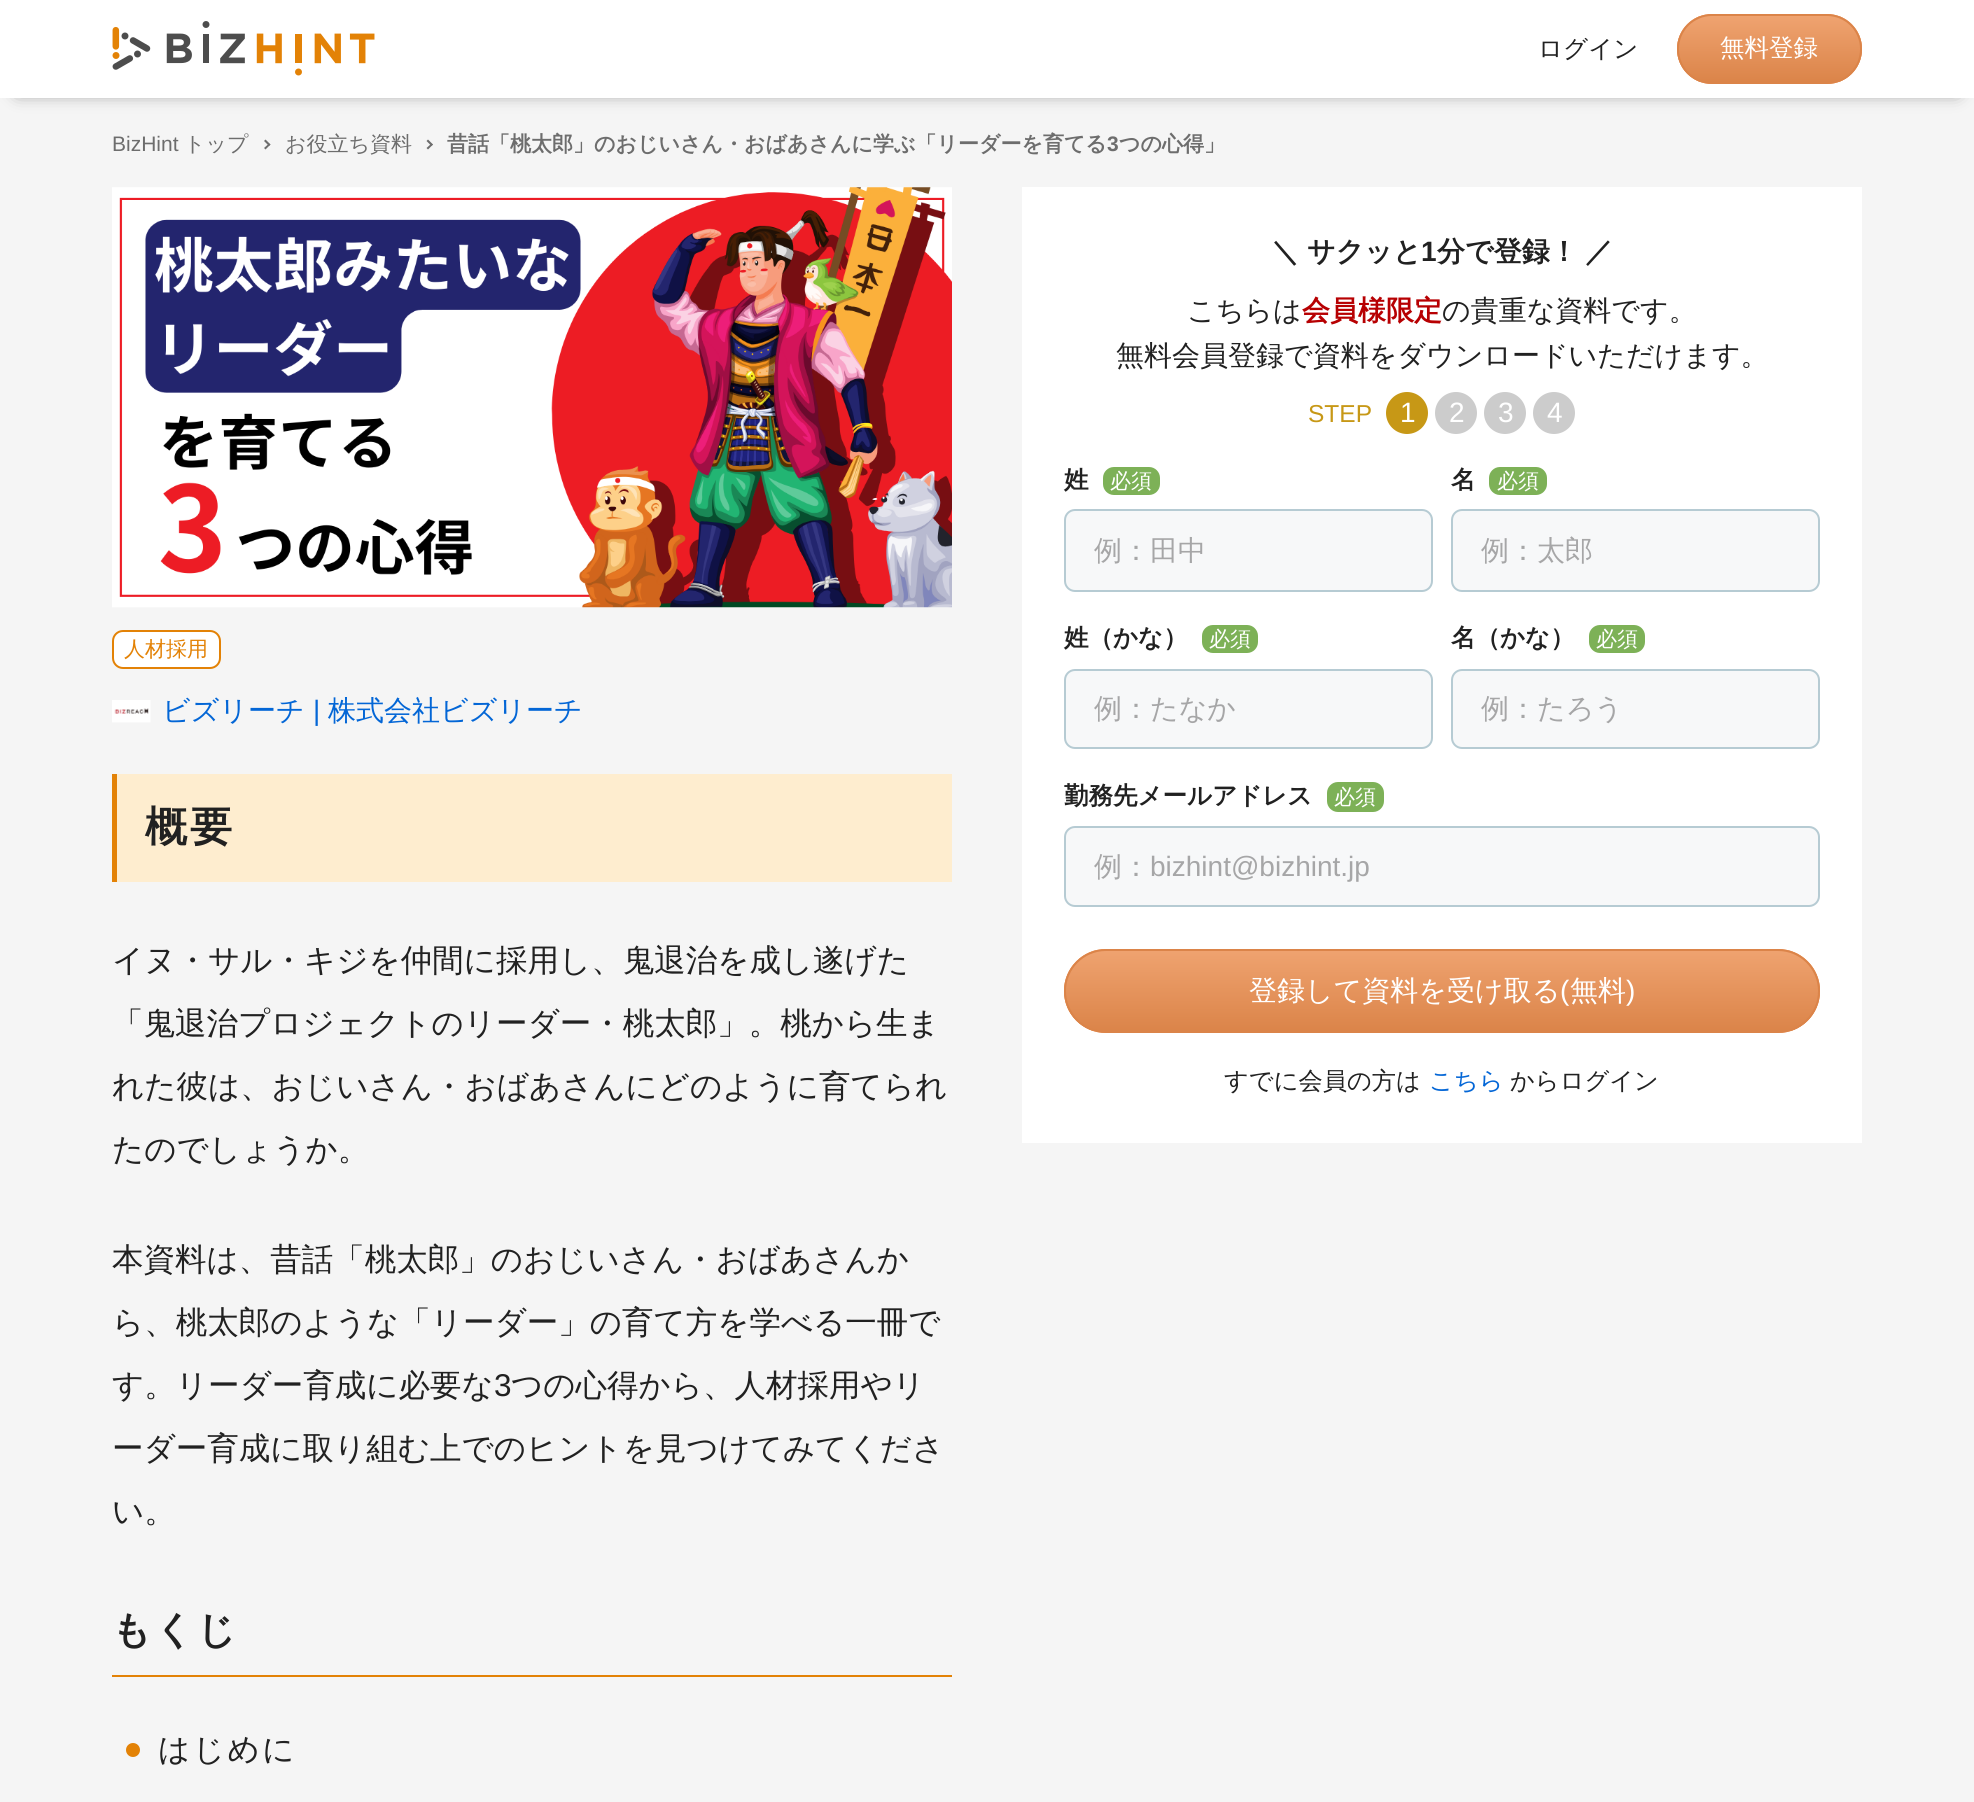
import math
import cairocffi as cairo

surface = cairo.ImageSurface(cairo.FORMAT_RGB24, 1974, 1802)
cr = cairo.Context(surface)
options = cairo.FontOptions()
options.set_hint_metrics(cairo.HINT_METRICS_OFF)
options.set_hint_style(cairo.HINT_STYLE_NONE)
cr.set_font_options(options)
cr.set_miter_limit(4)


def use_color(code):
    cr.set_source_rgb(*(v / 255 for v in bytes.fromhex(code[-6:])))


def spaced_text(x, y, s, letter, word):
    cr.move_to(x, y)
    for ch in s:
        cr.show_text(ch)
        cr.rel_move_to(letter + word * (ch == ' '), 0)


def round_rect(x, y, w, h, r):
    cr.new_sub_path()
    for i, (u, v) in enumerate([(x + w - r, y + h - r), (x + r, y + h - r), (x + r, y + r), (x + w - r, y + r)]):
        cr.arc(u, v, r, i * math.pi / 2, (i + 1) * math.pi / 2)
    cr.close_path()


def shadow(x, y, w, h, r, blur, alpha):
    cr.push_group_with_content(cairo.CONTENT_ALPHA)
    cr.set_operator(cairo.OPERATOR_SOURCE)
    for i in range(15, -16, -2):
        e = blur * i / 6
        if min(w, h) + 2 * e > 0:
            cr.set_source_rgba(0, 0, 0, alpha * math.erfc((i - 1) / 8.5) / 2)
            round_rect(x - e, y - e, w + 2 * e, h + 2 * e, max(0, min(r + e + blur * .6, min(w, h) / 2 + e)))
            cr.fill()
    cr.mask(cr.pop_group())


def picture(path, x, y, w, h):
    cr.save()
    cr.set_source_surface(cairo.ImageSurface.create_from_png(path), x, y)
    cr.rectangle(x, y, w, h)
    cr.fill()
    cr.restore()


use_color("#f5f5f5")
cr.paint()
use_color("#000000")
shadow(18, 28, 1939, 63, 0, 9, 0.6)
use_color("#ffffff")
cr.rectangle(0, 0, 1974, 98)
cr.fill()
picture("img1.png", 112, 21, 263, 55)
cr.select_font_face("WenQuanYi Zen Hei Medium")
cr.set_font_size(24.5)
use_color("#212121")
cr.move_to(1538, 57)
cr.show_text("ログイン")
round_rect(1678, 15, 183, 68, 34)
use_color("#f08f4f")
cr.stroke()
cr.save()
round_rect(1677, 14, 185, 70, 35)
cr.clip()
gradient = cairo.LinearGradient(1769, 16, 1769, 82)
gradient.add_color_stop_rgba(0, 0.937, 0.639, 0.439, 1)
gradient.add_color_stop_rgba(1, 0.859, 0.518, 0.286, 1)
cr.set_source(gradient)
cr.rectangle(1677, 16, 185, 66)
cr.fill()
cr.restore()
round_rect(1678, 15, 183, 68, 34)
use_color("#db8449")
cr.stroke()
use_color("#ffffff")
cr.move_to(1720, 56)
cr.show_text("無料登録")
cr.select_font_face("Liberation Sans")
cr.set_font_size(21)
use_color("#6d6d6d")
cr.move_to(112, 151)
cr.show_text("BizHint")
cr.select_font_face("WenQuanYi Zen Hei Medium")
cr.move_to(184, 151)
cr.show_text("トップ")
cr.new_path()
cr.move_to(265.5, 139.5)
cr.line_to(270.5, 144.5)
cr.line_to(269, 146)
cr.line_to(264, 141)
cr.close_path()
cr.fill()
cr.new_path()
cr.move_to(269, 143.5)
cr.line_to(270.5, 144.5)
cr.line_to(265.5, 149.5)
cr.line_to(264, 148)
cr.close_path()
cr.fill()
cr.move_to(285, 151)
cr.show_text("お役立ち資料")
cr.new_path()
cr.move_to(428, 139.5)
cr.line_to(433, 144.5)
cr.line_to(431.5, 146)
cr.line_to(426.5, 141)
cr.close_path()
cr.fill()
cr.new_path()
cr.move_to(431.5, 143.5)
cr.line_to(433, 144.5)
cr.line_to(428, 149.5)
cr.line_to(426.5, 148)
cr.close_path()
cr.fill()
cr.select_font_face("WenQuanYi Zen Hei", cairo.FONT_SLANT_NORMAL, cairo.FONT_WEIGHT_BOLD)
cr.move_to(447, 151)
cr.show_text("昔話「桃太郎」のおじいさん・おばあさんに学ぶ「リーダーを育てる")
cr.select_font_face("Liberation Sans", cairo.FONT_SLANT_NORMAL, cairo.FONT_WEIGHT_BOLD)
cr.move_to(1107, 151)
cr.show_text("3")
cr.select_font_face("WenQuanYi Zen Hei", cairo.FONT_SLANT_NORMAL, cairo.FONT_WEIGHT_BOLD)
cr.move_to(1119, 151)
cr.show_text("つの心得」")
picture("img2.png", 112, 187, 840, 421)
use_color("#ffffff")
round_rect(113, 631, 107, 37, 10)
cr.fill_preserve()
use_color("#e38206")
cr.stroke()
cr.select_font_face("WenQuanYi Zen Hei Medium")
cr.move_to(124, 656)
cr.show_text("人材採用")
picture("img3.png", 112, 700, 39, 23)
cr.set_font_size(28)
use_color("#0366d6")
cr.move_to(162, 720)
cr.show_text("ビズリーチ")
cr.select_font_face("Liberation Sans")
cr.move_to(313, 720)
cr.show_text("|")
cr.select_font_face("WenQuanYi Zen Hei Medium")
cr.move_to(328, 720)
cr.show_text("株式会社ビズリーチ")
use_color("#feedcf")
cr.rectangle(117, 774, 835, 108)
cr.fill()
use_color("#e38206")
cr.rectangle(112, 774, 5, 108)
cr.fill()
cr.select_font_face("WenQuanYi Zen Hei", cairo.FONT_SLANT_NORMAL, cairo.FONT_WEIGHT_BOLD)
cr.set_font_size(42)
use_color("#212121")
spaced_text(145, 841, "概要", 3, 0)
cr.select_font_face("WenQuanYi Zen Hei Medium")
cr.set_font_size(31.5)
cr.move_to(112, 971)
cr.show_text("イヌ・サル・キジを仲間に採用し、鬼退治を成し遂げた")
cr.move_to(112, 1034)
cr.show_text("「鬼退治プロジェクトのリーダー・桃太郎」。桃から生ま")
cr.move_to(112, 1097)
cr.show_text("れた彼は、おじいさん・おばあさんにどのように育てられ")
cr.move_to(112, 1160)
cr.show_text("たのでしょうか。")
cr.move_to(112, 1270)
cr.show_text("本資料は、昔話「桃太郎」のおじいさん・おばあさんか")
cr.move_to(112, 1333)
cr.show_text("ら、桃太郎のような「リーダー」の育て方を学べる一冊で")
cr.move_to(112, 1396)
cr.show_text("す。リーダー育成に必要な")
cr.select_font_face("Liberation Sans")
cr.move_to(494, 1396)
cr.show_text("3")
cr.select_font_face("WenQuanYi Zen Hei Medium")
cr.move_to(511, 1396)
cr.show_text("つの心得から、人材採用やリ")
cr.move_to(112, 1459)
cr.show_text("ーダー育成に取り組む上でのヒントを見つけてみてくださ")
cr.move_to(112, 1522)
cr.show_text("い。")
use_color("#e38206")
cr.rectangle(112, 1675, 840, 2)
cr.fill()
cr.select_font_face("WenQuanYi Zen Hei", cairo.FONT_SLANT_NORMAL, cairo.FONT_WEIGHT_BOLD)
cr.set_font_size(38.5)
use_color("#212121")
spaced_text(112, 1643, "もくじ", 3, 0)
use_color("#e38206")
cr.new_path()
cr.arc(133, 1750, 7, 0, 2 * math.pi)
cr.fill()
cr.select_font_face("WenQuanYi Zen Hei Medium")
cr.set_font_size(31.5)
use_color("#212121")
spaced_text(158, 1760, "はじめに", 2.5, 0)
use_color("#ffffff")
cr.rectangle(1022, 187, 840, 956)
cr.fill()
cr.select_font_face("WenQuanYi Zen Hei", cairo.FONT_SLANT_NORMAL, cairo.FONT_WEIGHT_BOLD)
cr.set_font_size(28)
use_color("#212121")
cr.move_to(1271, 261)
cr.show_text("＼")
cr.move_to(1307, 261)
cr.show_text("サクッと")
cr.select_font_face("Liberation Sans", cairo.FONT_SLANT_NORMAL, cairo.FONT_WEIGHT_BOLD)
cr.move_to(1421, 261)
cr.show_text("1")
cr.select_font_face("WenQuanYi Zen Hei", cairo.FONT_SLANT_NORMAL, cairo.FONT_WEIGHT_BOLD)
cr.move_to(1437, 261)
cr.show_text("分で登録！")
cr.move_to(1585, 261)
cr.show_text("／")
cr.select_font_face("WenQuanYi Zen Hei Medium")
cr.move_to(1187, 320)
cr.show_text("こちらは")
cr.select_font_face("WenQuanYi Zen Hei", cairo.FONT_SLANT_NORMAL, cairo.FONT_WEIGHT_BOLD)
use_color("#b70002")
cr.move_to(1302, 320)
cr.show_text("会員様限定")
cr.select_font_face("WenQuanYi Zen Hei Medium")
use_color("#212121")
cr.move_to(1442, 320)
cr.show_text("の貴重な資料です。")
cr.move_to(1116, 365)
cr.show_text("無料会員登録で資料をダウンロードいただけます。")
cr.select_font_face("Liberation Sans")
cr.set_font_size(24.5)
use_color("#c79816")
cr.move_to(1308, 422)
cr.show_text("STEP")
cr.new_path()
cr.arc(1407, 413, 21, 0, 2 * math.pi)
cr.fill()
cr.set_font_size(28)
use_color("#ffffff")
cr.move_to(1400, 422)
cr.show_text("1")
use_color("#cccccc")
cr.new_path()
cr.arc(1456, 413, 21, 0, 2 * math.pi)
cr.fill()
use_color("#ffffff")
cr.move_to(1449, 422)
cr.show_text("2")
use_color("#cccccc")
cr.new_path()
cr.arc(1505, 413, 21, 0, 2 * math.pi)
cr.fill()
use_color("#ffffff")
cr.move_to(1498, 422)
cr.show_text("3")
use_color("#cccccc")
cr.new_path()
cr.arc(1554, 413, 21, 0, 2 * math.pi)
cr.fill()
use_color("#ffffff")
cr.move_to(1547, 422)
cr.show_text("4")
cr.select_font_face("WenQuanYi Zen Hei", cairo.FONT_SLANT_NORMAL, cairo.FONT_WEIGHT_BOLD)
cr.set_font_size(24.5)
use_color("#212121")
cr.move_to(1064, 488)
cr.show_text("姓")
use_color("#7db157")
round_rect(1103, 467, 57, 28, 11)
cr.fill()
cr.select_font_face("WenQuanYi Zen Hei Medium")
cr.set_font_size(21)
use_color("#ffffff")
cr.move_to(1110, 488)
cr.show_text("必須")
use_color("#f7f8f9")
round_rect(1065, 510, 367, 81, 10)
cr.fill_preserve()
use_color("#b6cbd3")
cr.stroke()
cr.set_font_size(28)
use_color("#a6a6a7")
cr.move_to(1094, 560)
cr.show_text("例：田中")
cr.select_font_face("WenQuanYi Zen Hei", cairo.FONT_SLANT_NORMAL, cairo.FONT_WEIGHT_BOLD)
cr.set_font_size(24.5)
use_color("#212121")
cr.move_to(1451, 488)
cr.show_text("名")
use_color("#7db157")
round_rect(1489, 467, 58, 28, 11)
cr.fill()
cr.select_font_face("WenQuanYi Zen Hei Medium")
cr.set_font_size(21)
use_color("#ffffff")
cr.move_to(1497, 488)
cr.show_text("必須")
use_color("#f7f8f9")
round_rect(1452, 510, 367, 81, 10)
cr.fill_preserve()
use_color("#b6cbd3")
cr.stroke()
cr.set_font_size(28)
use_color("#a6a6a7")
cr.move_to(1481, 560)
cr.show_text("例：太郎")
cr.select_font_face("WenQuanYi Zen Hei", cairo.FONT_SLANT_NORMAL, cairo.FONT_WEIGHT_BOLD)
cr.set_font_size(24.5)
use_color("#212121")
cr.move_to(1064, 646)
cr.show_text("姓（かな）")
use_color("#7db157")
round_rect(1202, 625, 56, 28, 11)
cr.fill()
cr.select_font_face("WenQuanYi Zen Hei Medium")
cr.set_font_size(21)
use_color("#ffffff")
cr.move_to(1209, 646)
cr.show_text("必須")
use_color("#f7f8f9")
round_rect(1065, 670, 367, 78, 10)
cr.fill_preserve()
use_color("#b6cbd3")
cr.stroke()
cr.set_font_size(28)
use_color("#a6a6a7")
cr.move_to(1094, 718)
cr.show_text("例：たなか")
cr.select_font_face("WenQuanYi Zen Hei", cairo.FONT_SLANT_NORMAL, cairo.FONT_WEIGHT_BOLD)
cr.set_font_size(24.5)
use_color("#212121")
cr.move_to(1451, 646)
cr.show_text("名（かな）")
use_color("#7db157")
round_rect(1589, 625, 56, 28, 11)
cr.fill()
cr.select_font_face("WenQuanYi Zen Hei Medium")
cr.set_font_size(21)
use_color("#ffffff")
cr.move_to(1596, 646)
cr.show_text("必須")
use_color("#f7f8f9")
round_rect(1452, 670, 367, 78, 10)
cr.fill_preserve()
use_color("#b6cbd3")
cr.stroke()
cr.set_font_size(28)
use_color("#a6a6a7")
cr.move_to(1481, 718)
cr.show_text("例：たろう")
cr.select_font_face("WenQuanYi Zen Hei", cairo.FONT_SLANT_NORMAL, cairo.FONT_WEIGHT_BOLD)
cr.set_font_size(24.5)
use_color("#212121")
cr.move_to(1064, 804)
cr.show_text("勤務先メールアドレス")
use_color("#7db157")
round_rect(1327, 782, 57, 30, 11)
cr.fill()
cr.select_font_face("WenQuanYi Zen Hei Medium")
cr.set_font_size(21)
use_color("#ffffff")
cr.move_to(1334, 804)
cr.show_text("必須")
use_color("#f7f8f9")
round_rect(1065, 827, 754, 79, 10)
cr.fill_preserve()
use_color("#b6cbd3")
cr.stroke()
cr.set_font_size(28)
use_color("#a6a6a7")
cr.move_to(1094, 876)
cr.show_text("例：")
cr.select_font_face("Liberation Sans")
cr.move_to(1150, 876)
cr.show_text("bizhint@bizhint.jp")
round_rect(1065, 950, 754, 82, 41)
use_color("#f08f4f")
cr.stroke()
cr.save()
round_rect(1064, 949, 756, 84, 42)
cr.clip()
gradient = cairo.LinearGradient(1442, 950, 1442, 1031)
gradient.add_color_stop_rgba(0, 0.937, 0.639, 0.439, 1)
gradient.add_color_stop_rgba(1, 0.859, 0.518, 0.286, 1)
cr.set_source(gradient)
cr.rectangle(1064, 950, 756, 81)
cr.fill()
cr.restore()
round_rect(1065, 950, 754, 82, 41)
use_color("#db8449")
cr.stroke()
cr.select_font_face("WenQuanYi Zen Hei Medium")
use_color("#ffffff")
cr.move_to(1249, 1000)
cr.show_text("登録して資料を受け取る")
cr.select_font_face("Liberation Sans")
cr.move_to(1560, 1000)
cr.show_text("(")
cr.select_font_face("WenQuanYi Zen Hei Medium")
cr.move_to(1570, 1000)
cr.show_text("無料")
cr.select_font_face("Liberation Sans")
cr.move_to(1626, 1000)
cr.show_text(")")
cr.select_font_face("WenQuanYi Zen Hei Medium")
cr.set_font_size(24.25)
use_color("#212121")
cr.move_to(1224, 1089)
cr.show_text("すでに会員の方は")
use_color("#0366d6")
cr.move_to(1429, 1089)
cr.show_text("こちら")
use_color("#212121")
cr.move_to(1510, 1089)
cr.show_text("からログイン")
surface.write_to_png("result.png")
